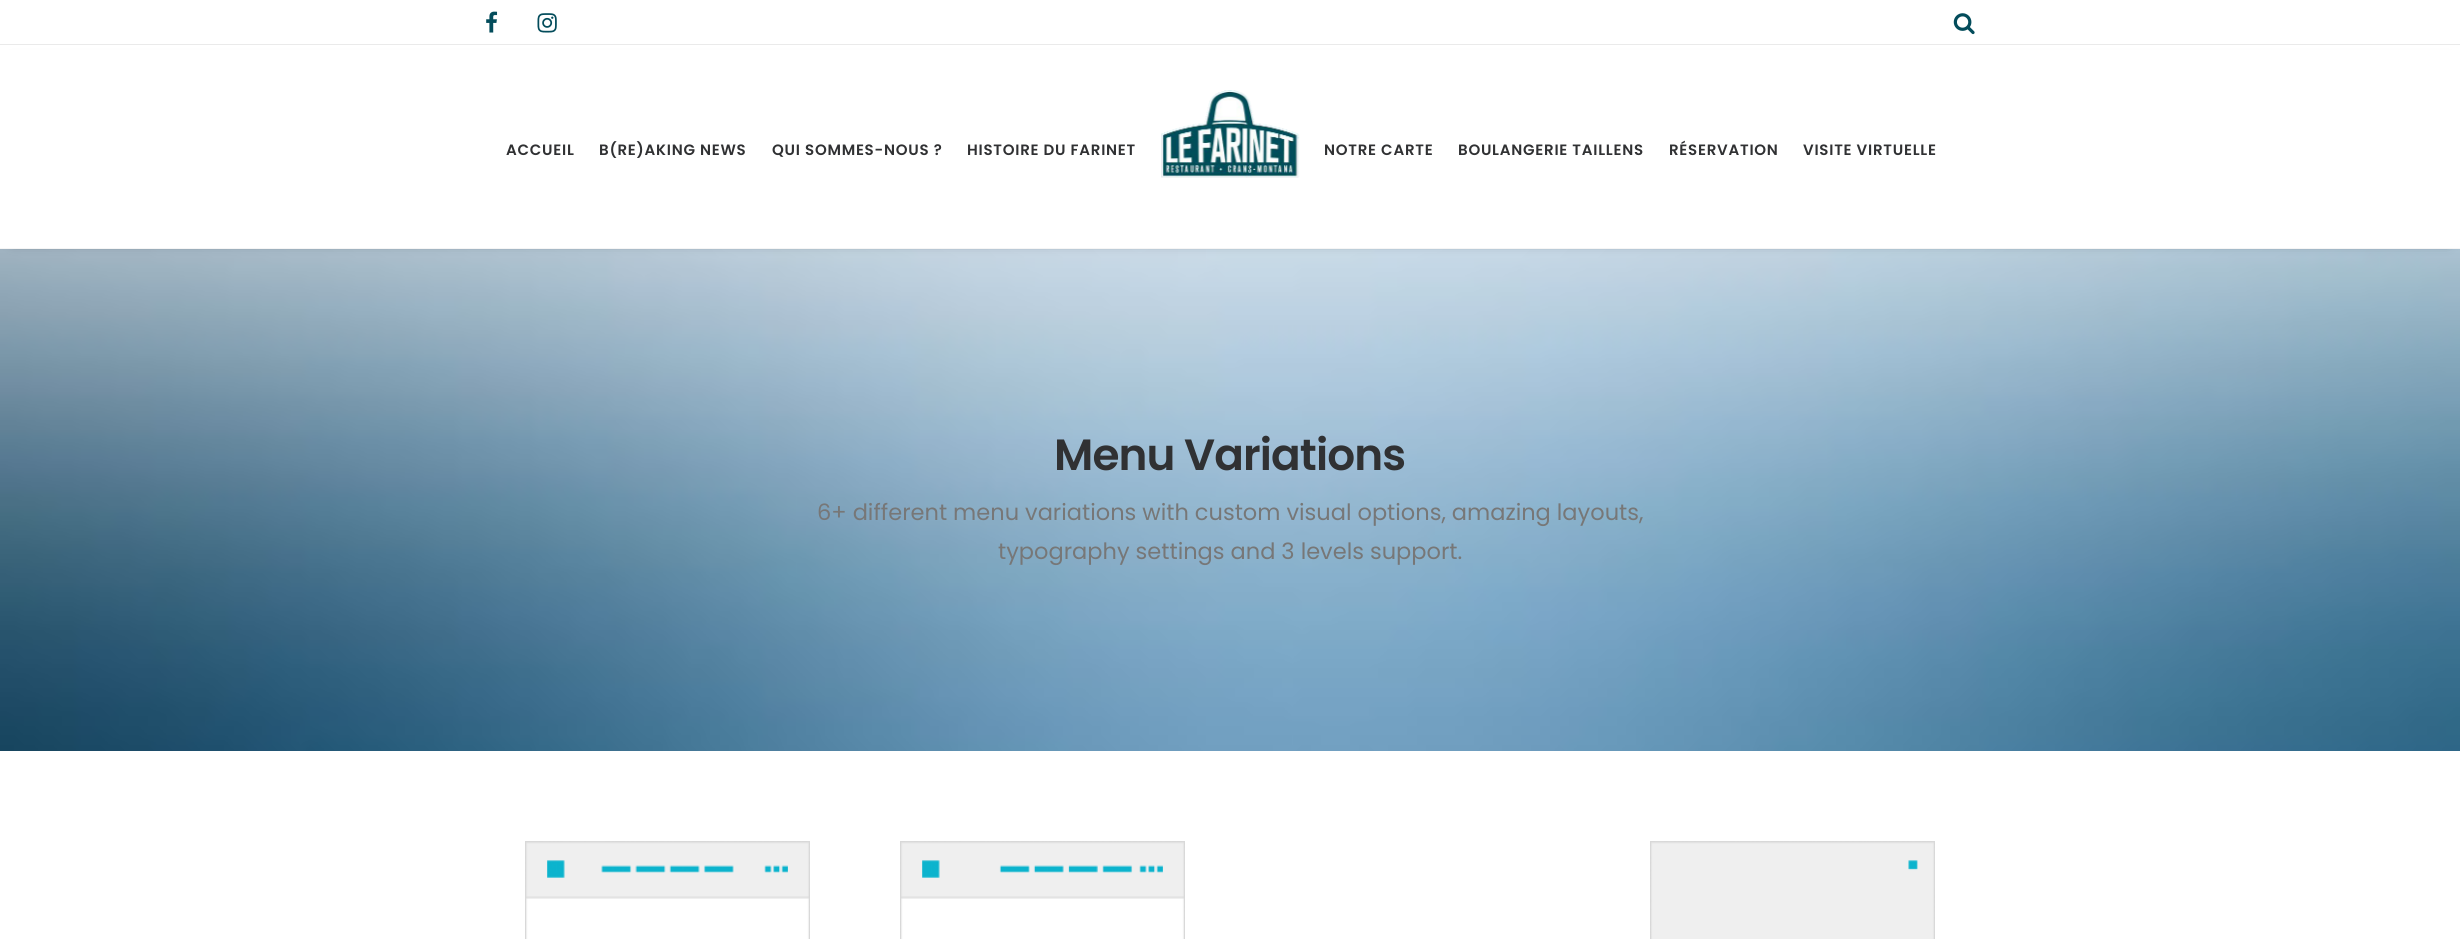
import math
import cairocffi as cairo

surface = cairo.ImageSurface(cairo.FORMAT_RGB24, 2460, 939)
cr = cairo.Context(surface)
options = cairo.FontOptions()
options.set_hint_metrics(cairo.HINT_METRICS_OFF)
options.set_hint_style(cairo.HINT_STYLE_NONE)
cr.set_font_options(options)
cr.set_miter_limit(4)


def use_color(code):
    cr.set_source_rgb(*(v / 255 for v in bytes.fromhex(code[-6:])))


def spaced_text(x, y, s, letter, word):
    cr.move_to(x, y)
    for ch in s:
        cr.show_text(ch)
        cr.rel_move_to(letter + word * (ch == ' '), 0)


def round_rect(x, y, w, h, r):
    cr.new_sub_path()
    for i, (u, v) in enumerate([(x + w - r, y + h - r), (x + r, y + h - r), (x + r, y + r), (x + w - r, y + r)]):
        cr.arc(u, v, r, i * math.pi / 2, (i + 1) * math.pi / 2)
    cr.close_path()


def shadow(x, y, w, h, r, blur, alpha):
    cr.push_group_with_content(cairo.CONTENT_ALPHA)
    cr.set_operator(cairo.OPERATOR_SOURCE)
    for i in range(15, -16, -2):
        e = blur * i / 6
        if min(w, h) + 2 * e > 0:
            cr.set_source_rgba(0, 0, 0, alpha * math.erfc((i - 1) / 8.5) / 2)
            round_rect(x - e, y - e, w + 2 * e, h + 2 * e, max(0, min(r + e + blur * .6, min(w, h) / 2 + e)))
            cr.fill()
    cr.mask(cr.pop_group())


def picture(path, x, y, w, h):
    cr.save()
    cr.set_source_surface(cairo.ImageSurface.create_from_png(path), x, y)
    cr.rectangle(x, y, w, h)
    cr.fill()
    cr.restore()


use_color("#ffffff")
cr.paint()
use_color("#eaeaea")
cr.rectangle(0, 44, 2460, 1)
cr.fill()
picture("img1.png", 486, 11, 12, 22)
picture("img2.png", 537, 13, 20, 20)
picture("img3.png", 1953, 13, 22, 22)
picture("img5.png", 0, 249, 2460, 502)
use_color("#000000")
shadow(13, 63, 2435, 178, 0, 6, 0.6)
use_color("#ffffff")
cr.rectangle(0, 50, 2460, 198)
cr.fill()
use_color("#f5f5f5")
cr.rectangle(0, 248, 2460, 1)
cr.fill()
cr.select_font_face("Poppins SemiBold")
cr.set_font_size(15)
use_color("#303133")
spaced_text(506, 155, "ACCUEIL", 0.75, 0)
spaced_text(599, 155, "B(RE)AKING NEWS", 0.75, 0)
spaced_text(772, 155, "QUI SOMMES-NOUS ?", 0.75, 0)
spaced_text(967, 155, "HISTOIRE DU FARINET", 0.75, 0)
picture("img4.png", 1161, 90, 139, 88)
spaced_text(1324, 155, "NOTRE CARTE", 0.75, 0)
spaced_text(1458, 155, "BOULANGERIE TAILLENS", 0.75, 0)
spaced_text(1669, 155, "RÉSERVATION", 0.75, 0)
spaced_text(1803, 155, "VISITE VIRTUELLE", 0.75, 0)
cr.set_font_size(43.75)
spaced_text(1054, 470, "Menu Variations", -0.9, 0)
cr.select_font_face("Poppins")
cr.set_font_size(22.5)
use_color("#777777")
cr.move_to(817, 520)
cr.show_text("6+ different menu variations with custom visual options, amazing layouts,")
cr.move_to(998, 559)
cr.show_text("typography settings and 3 levels support.")
picture("img6.png", 525, 841, 285, 98)
picture("img7.png", 900, 841, 285, 98)
picture("img8.png", 1650, 841, 285, 98)
surface.write_to_png("result.png")
